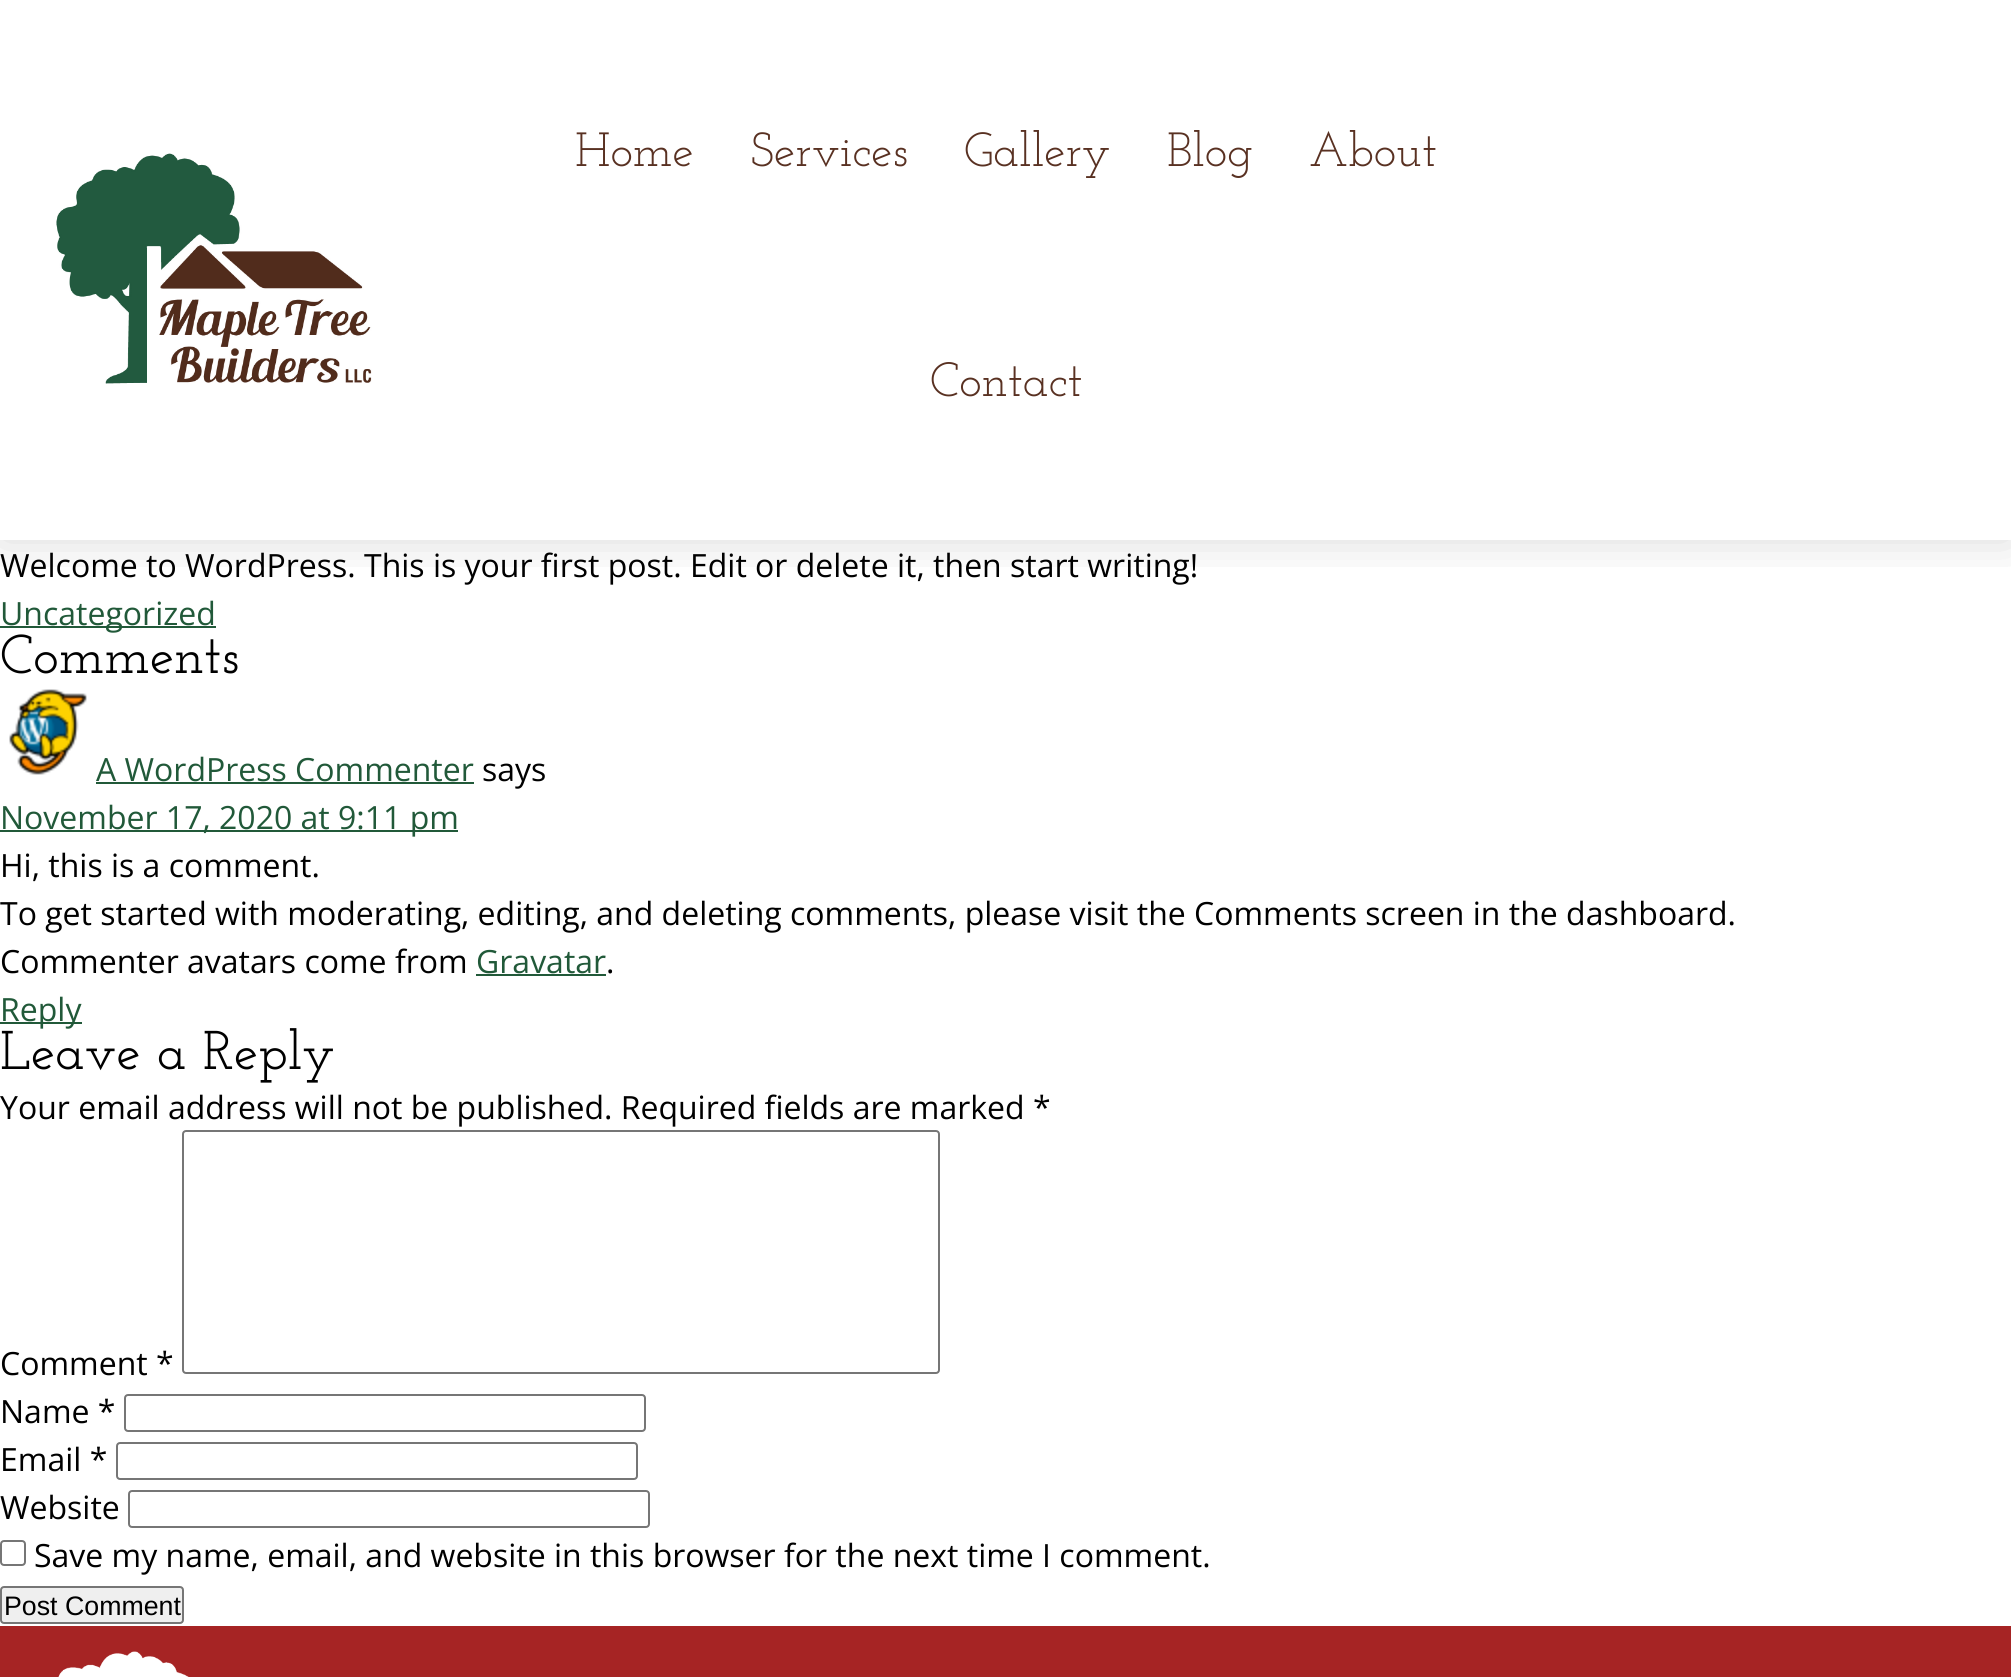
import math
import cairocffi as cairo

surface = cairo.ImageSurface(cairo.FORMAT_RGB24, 2011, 1677)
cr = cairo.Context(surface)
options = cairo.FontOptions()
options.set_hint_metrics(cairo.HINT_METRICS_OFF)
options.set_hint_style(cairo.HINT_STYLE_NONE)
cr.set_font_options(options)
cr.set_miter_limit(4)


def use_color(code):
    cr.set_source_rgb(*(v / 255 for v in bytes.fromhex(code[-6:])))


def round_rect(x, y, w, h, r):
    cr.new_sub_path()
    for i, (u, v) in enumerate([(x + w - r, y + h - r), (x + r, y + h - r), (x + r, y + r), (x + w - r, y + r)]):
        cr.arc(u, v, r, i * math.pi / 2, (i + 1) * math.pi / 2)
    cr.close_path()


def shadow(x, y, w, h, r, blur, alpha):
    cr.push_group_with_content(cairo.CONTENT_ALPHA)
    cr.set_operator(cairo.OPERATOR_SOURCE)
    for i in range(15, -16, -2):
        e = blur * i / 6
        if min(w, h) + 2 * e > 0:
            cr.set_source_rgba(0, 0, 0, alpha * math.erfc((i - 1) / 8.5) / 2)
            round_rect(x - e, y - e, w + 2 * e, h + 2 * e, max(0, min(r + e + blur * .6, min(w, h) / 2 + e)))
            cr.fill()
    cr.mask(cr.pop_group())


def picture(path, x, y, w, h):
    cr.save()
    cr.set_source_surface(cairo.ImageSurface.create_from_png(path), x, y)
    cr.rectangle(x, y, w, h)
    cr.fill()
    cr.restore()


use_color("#ffffff")
cr.paint()
cr.save()
cr.rectangle(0, 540, 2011, 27)
cr.clip()
use_color("#000000")
shadow(0, 0, 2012, 540, 0, 24, 0.15)
cr.restore()
picture("img1.png", 56, 153, 316, 231)
cr.select_font_face("Josefin Slab")
cr.set_font_size(48)
use_color("#593122")
cr.move_to(575, 166)
cr.show_text("Home")
cr.move_to(750, 166)
cr.show_text("Services")
cr.move_to(964, 166)
cr.show_text("Gallery")
cr.move_to(1167, 166)
cr.show_text("Blog")
cr.move_to(1309, 166)
cr.show_text("About")
cr.move_to(930, 396)
cr.show_text("Contact")
cr.select_font_face("Open Sans")
cr.set_font_size(32)
use_color("#000000")
cr.move_to(0, 577)
cr.show_text("Welcome to WordPress. This is your first post. Edit or delete it, then start writing!")
use_color("#215939")
cr.rectangle(0, 626, 216, 2)
cr.fill()
cr.move_to(0, 625)
cr.show_text("Uncategorized")
cr.select_font_face("Josefin Slab Medium")
cr.set_font_size(54.5)
use_color("#000000")
cr.move_to(0, 673)
cr.show_text("Comments")
picture("img2.png", 9, 689, 78, 86)
cr.select_font_face("Open Sans")
cr.set_font_size(32)
use_color("#215939")
cr.move_to(96, 781)
cr.show_text("A WordPress Commenter")
cr.rectangle(96, 782, 378, 2)
cr.fill()
use_color("#000000")
cr.move_to(482, 781)
cr.show_text("says")
use_color("#215939")
cr.rectangle(0, 830, 458, 2)
cr.fill()
cr.move_to(0, 829)
cr.show_text("November 17, 2020 at 9:11 pm")
use_color("#000000")
cr.move_to(0, 877)
cr.show_text("Hi, this is a comment.")
cr.move_to(0, 925)
cr.show_text("To get started with moderating, editing, and deleting comments, please visit the Comments screen in the dashboard.")
cr.move_to(0, 973)
cr.show_text("Commenter avatars come from")
use_color("#215939")
cr.move_to(476, 973)
cr.show_text("Gravatar")
cr.rectangle(476, 974, 130, 2)
cr.fill()
use_color("#000000")
cr.move_to(606, 973)
cr.show_text(".")
use_color("#215939")
cr.rectangle(0, 1022, 82, 2)
cr.fill()
cr.move_to(0, 1021)
cr.show_text("Reply")
cr.select_font_face("Josefin Slab Medium")
cr.set_font_size(54.5)
use_color("#000000")
cr.move_to(0, 1069)
cr.show_text("Leave a Reply")
cr.select_font_face("Open Sans")
cr.set_font_size(32)
cr.move_to(0, 1119)
cr.show_text("Your email address will not be published. Required fields are marked *")
cr.move_to(0, 1375)
cr.show_text("Comment *")
round_rect(183, 1131, 756, 242, 3)
use_color("#767676")
cr.stroke()
use_color("#000000")
cr.move_to(0, 1423)
cr.show_text("Name *")
round_rect(125, 1395, 520, 36, 3)
use_color("#767676")
cr.stroke()
use_color("#000000")
cr.move_to(0, 1471)
cr.show_text("Email *")
round_rect(117, 1443, 520, 36, 3)
use_color("#767676")
cr.stroke()
use_color("#000000")
cr.move_to(0, 1519)
cr.show_text("Website")
round_rect(129, 1491, 520, 36, 3)
use_color("#767676")
cr.stroke()
round_rect(1, 1541, 24, 24, 3)
cr.stroke()
use_color("#000000")
cr.move_to(34, 1567)
cr.show_text("Save my name, email, and website in this browser for the next time I comment.")
use_color("#efefef")
round_rect(1, 1587, 182, 36, 3)
cr.fill_preserve()
use_color("#767676")
cr.stroke()
cr.select_font_face("Liberation Sans")
cr.set_font_size(26.75)
use_color("#000000")
cr.move_to(4, 1615)
cr.show_text("Post Comment")
use_color("#a62424")
cr.rectangle(0, 1626, 2011, 51)
cr.fill()
picture("img3.png", 58, 1651, 131, 26)
surface.write_to_png("result.png")
